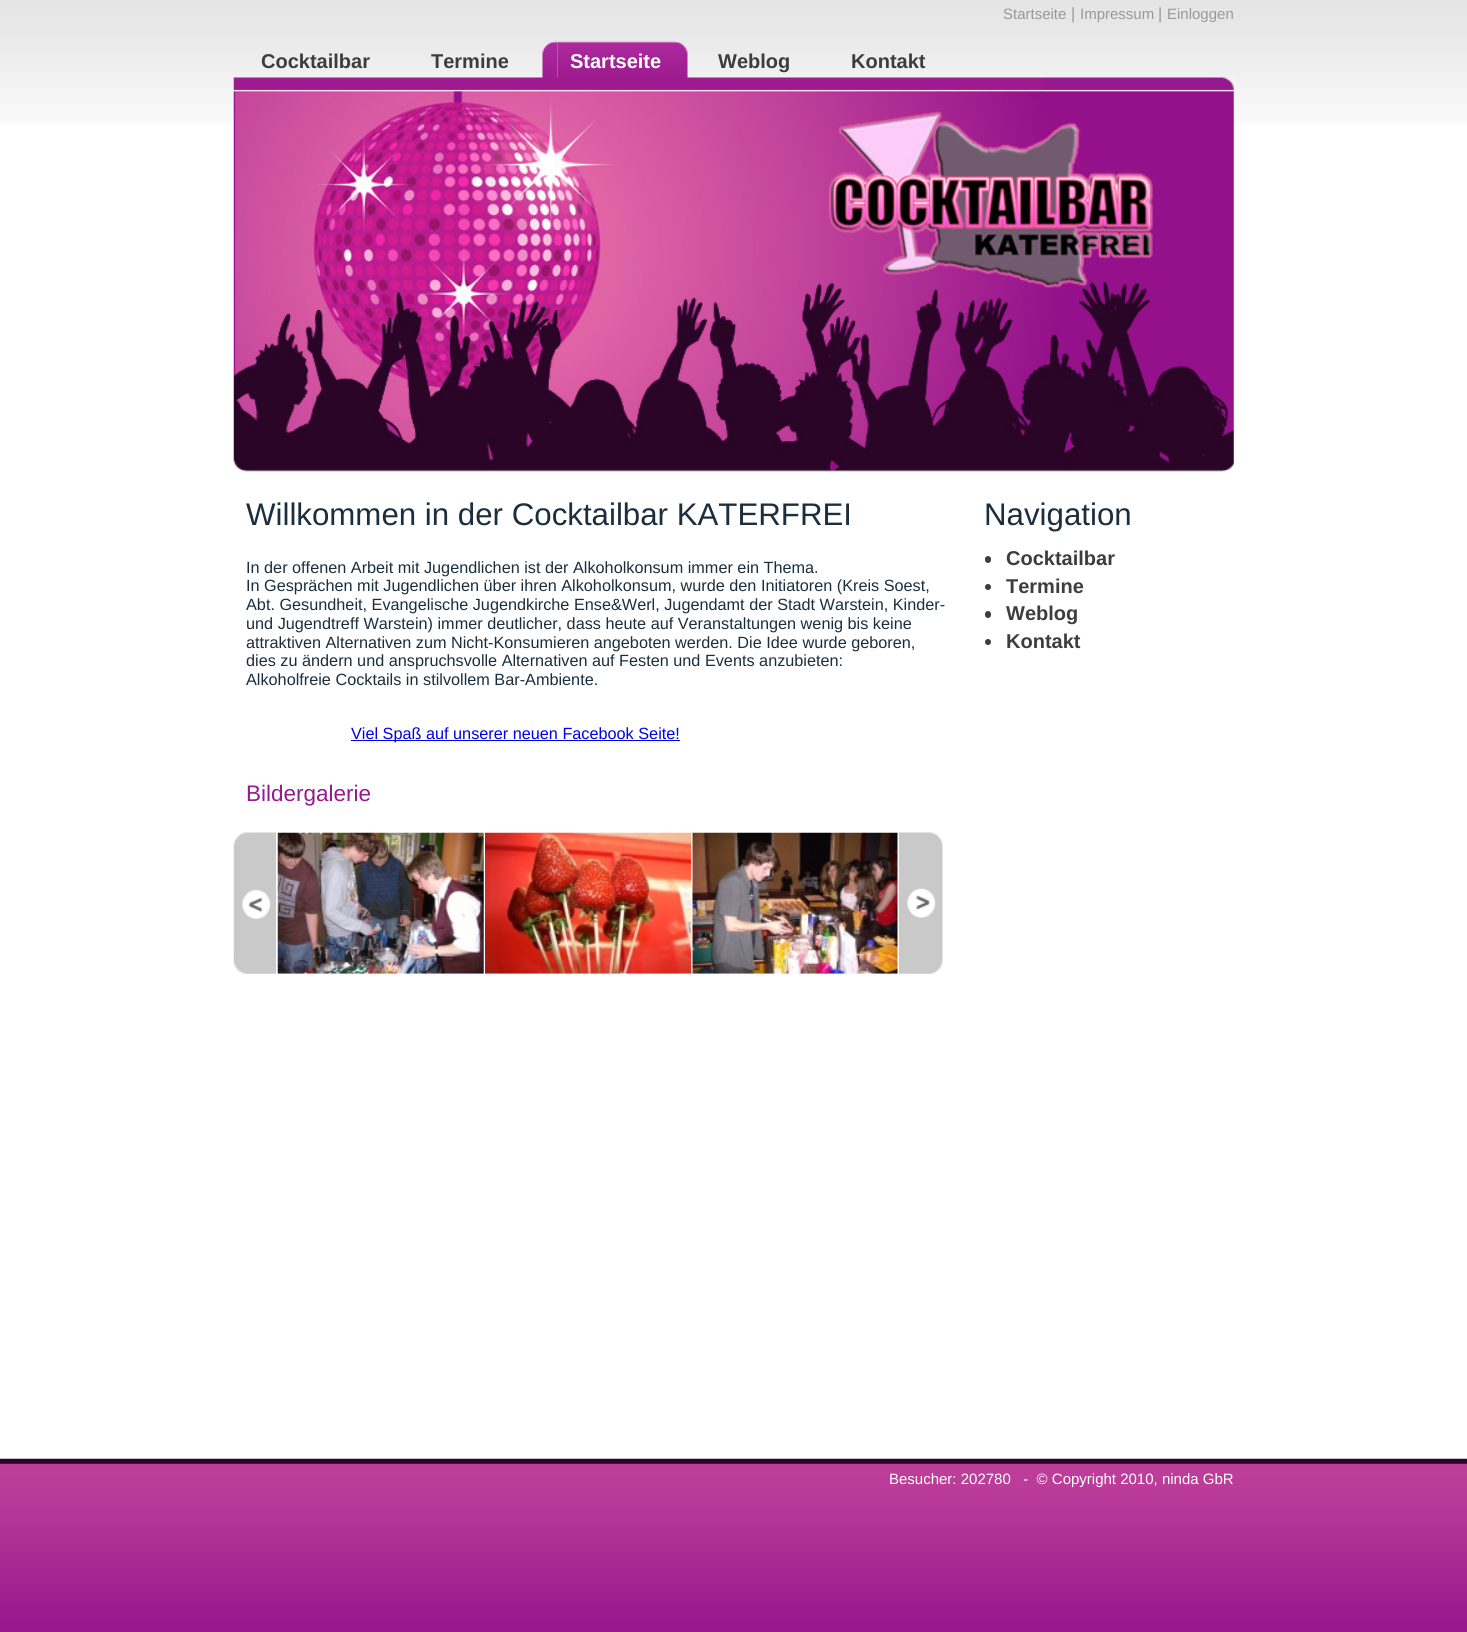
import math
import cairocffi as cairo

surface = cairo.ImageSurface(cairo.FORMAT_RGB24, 1467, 1632)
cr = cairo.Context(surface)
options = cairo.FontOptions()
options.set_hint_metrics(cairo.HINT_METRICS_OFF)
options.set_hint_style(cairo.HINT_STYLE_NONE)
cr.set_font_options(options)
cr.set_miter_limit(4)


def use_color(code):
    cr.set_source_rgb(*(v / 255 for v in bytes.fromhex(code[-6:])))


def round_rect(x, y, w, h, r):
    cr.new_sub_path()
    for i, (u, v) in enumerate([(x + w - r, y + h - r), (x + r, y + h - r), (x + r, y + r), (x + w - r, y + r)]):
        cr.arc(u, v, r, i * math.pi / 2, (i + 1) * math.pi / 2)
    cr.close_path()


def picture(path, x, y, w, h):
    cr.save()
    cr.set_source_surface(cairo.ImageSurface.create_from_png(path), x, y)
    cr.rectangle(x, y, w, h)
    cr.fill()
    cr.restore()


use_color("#ffffff")
cr.paint()
picture("img1.png", 0, 0, 1467, 124)
cr.select_font_face("Liberation Sans")
cr.set_font_size(15)
use_color("#999999")
cr.move_to(1003, 19)
cr.show_text("Startseite")
cr.set_font_size(16.25)
cr.move_to(1071, 19)
cr.show_text("|")
cr.set_font_size(15)
cr.move_to(1080, 19)
cr.show_text("Impressum")
cr.set_font_size(16.25)
cr.move_to(1158, 19)
cr.show_text("|")
cr.set_font_size(15)
cr.move_to(1167, 19)
cr.show_text("Einloggen")
cr.select_font_face("Liberation Sans", cairo.FONT_SLANT_NORMAL, cairo.FONT_WEIGHT_BOLD)
cr.set_font_size(20)
use_color("#3d3d3d")
cr.move_to(261, 68)
cr.show_text("Cocktailbar")
cr.move_to(431, 68)
cr.show_text("Termine")
picture("img4.png", 233, 77, 1001, 395)
picture("img2.png", 542, 41, 16, 37)
picture("img3.png", 557, 41, 131, 37)
use_color("#ffffff")
cr.move_to(570, 68)
cr.show_text("Startseite")
use_color("#3d3d3d")
cr.move_to(718, 68)
cr.show_text("Weblog")
cr.move_to(851, 68)
cr.show_text("Kontakt")
cr.select_font_face("Liberation Sans")
cr.set_font_size(31.25)
use_color("#1b2e3d")
cr.move_to(246, 525)
cr.show_text("Willkommen in der Cocktailbar KATERFREI")
cr.set_font_size(16.25)
cr.move_to(246, 573)
cr.show_text("In der offenen Arbeit mit Jugendlichen ist der Alkoholkonsum immer ein Thema.")
cr.move_to(246, 591)
cr.show_text("In Gesprächen mit Jugendlichen über ihren Alkoholkonsum, wurde den Initiatoren (Kreis Soest,")
cr.move_to(246, 610)
cr.show_text("Abt. Gesundheit, Evangelische Jugendkirche Ense&Werl, Jugendamt der Stadt Warstein, Kinder-")
cr.move_to(246, 629)
cr.show_text("und Jugendtreff Warstein) immer deutlicher, dass heute auf Veranstaltungen wenig bis keine")
cr.move_to(246, 648)
cr.show_text("attraktiven Alternativen zum Nicht-Konsumieren angeboten werden. Die Idee wurde geboren,")
cr.move_to(246, 666)
cr.show_text("dies zu ändern und anspruchsvolle Alternativen auf Festen und Events anzubieten:")
cr.move_to(246, 685)
cr.show_text("Alkoholfreie Cocktails in stilvollem Bar-Ambiente.")
use_color("#0000ee")
cr.rectangle(351, 740, 329, 1)
cr.fill()
cr.move_to(351, 739)
cr.show_text("Viel Spaß auf unserer neuen Facebook Seite!")
cr.set_font_size(22.5)
use_color("#951a8e")
cr.move_to(246, 801)
cr.show_text("Bildergalerie")
picture("img5.png", 233, 832, 44, 142)
picture("img9.png", 898, 832, 45, 142)
use_color("#ffffff")
cr.rectangle(898, 833, 1, 141)
cr.fill()
cr.rectangle(276, 833, 1, 141)
cr.fill()
picture("img6.png", 277, 832, 207, 142)
picture("img7.png", 485, 832, 207, 142)
picture("img8.png", 692, 832, 206, 142)
cr.set_font_size(31.25)
use_color("#1b2e3d")
cr.move_to(984, 525)
cr.show_text("Navigation")
use_color("#3d3d3d")
round_rect(985, 556, 6, 7, 3)
cr.fill()
cr.select_font_face("Liberation Sans", cairo.FONT_SLANT_NORMAL, cairo.FONT_WEIGHT_BOLD)
cr.set_font_size(20)
cr.move_to(1006, 565)
cr.show_text("Cocktailbar")
cr.new_path()
cr.arc(988, 587, 3, 0, 2 * math.pi)
cr.fill()
cr.move_to(1006, 593)
cr.show_text("Termine")
round_rect(985, 611, 6, 7, 3)
cr.fill()
cr.move_to(1006, 620)
cr.show_text("Weblog")
cr.new_path()
cr.arc(988, 642, 3, 0, 2 * math.pi)
cr.fill()
cr.move_to(1006, 648)
cr.show_text("Kontakt")
picture("img10.png", 0, 1458, 1467, 174)
cr.select_font_face("Liberation Sans")
cr.set_font_size(15)
use_color("#ffffff")
cr.move_to(889, 1484)
cr.show_text("Besucher: 202780   -  © Copyright 2010, ninda GbR")
surface.write_to_png("result.png")
